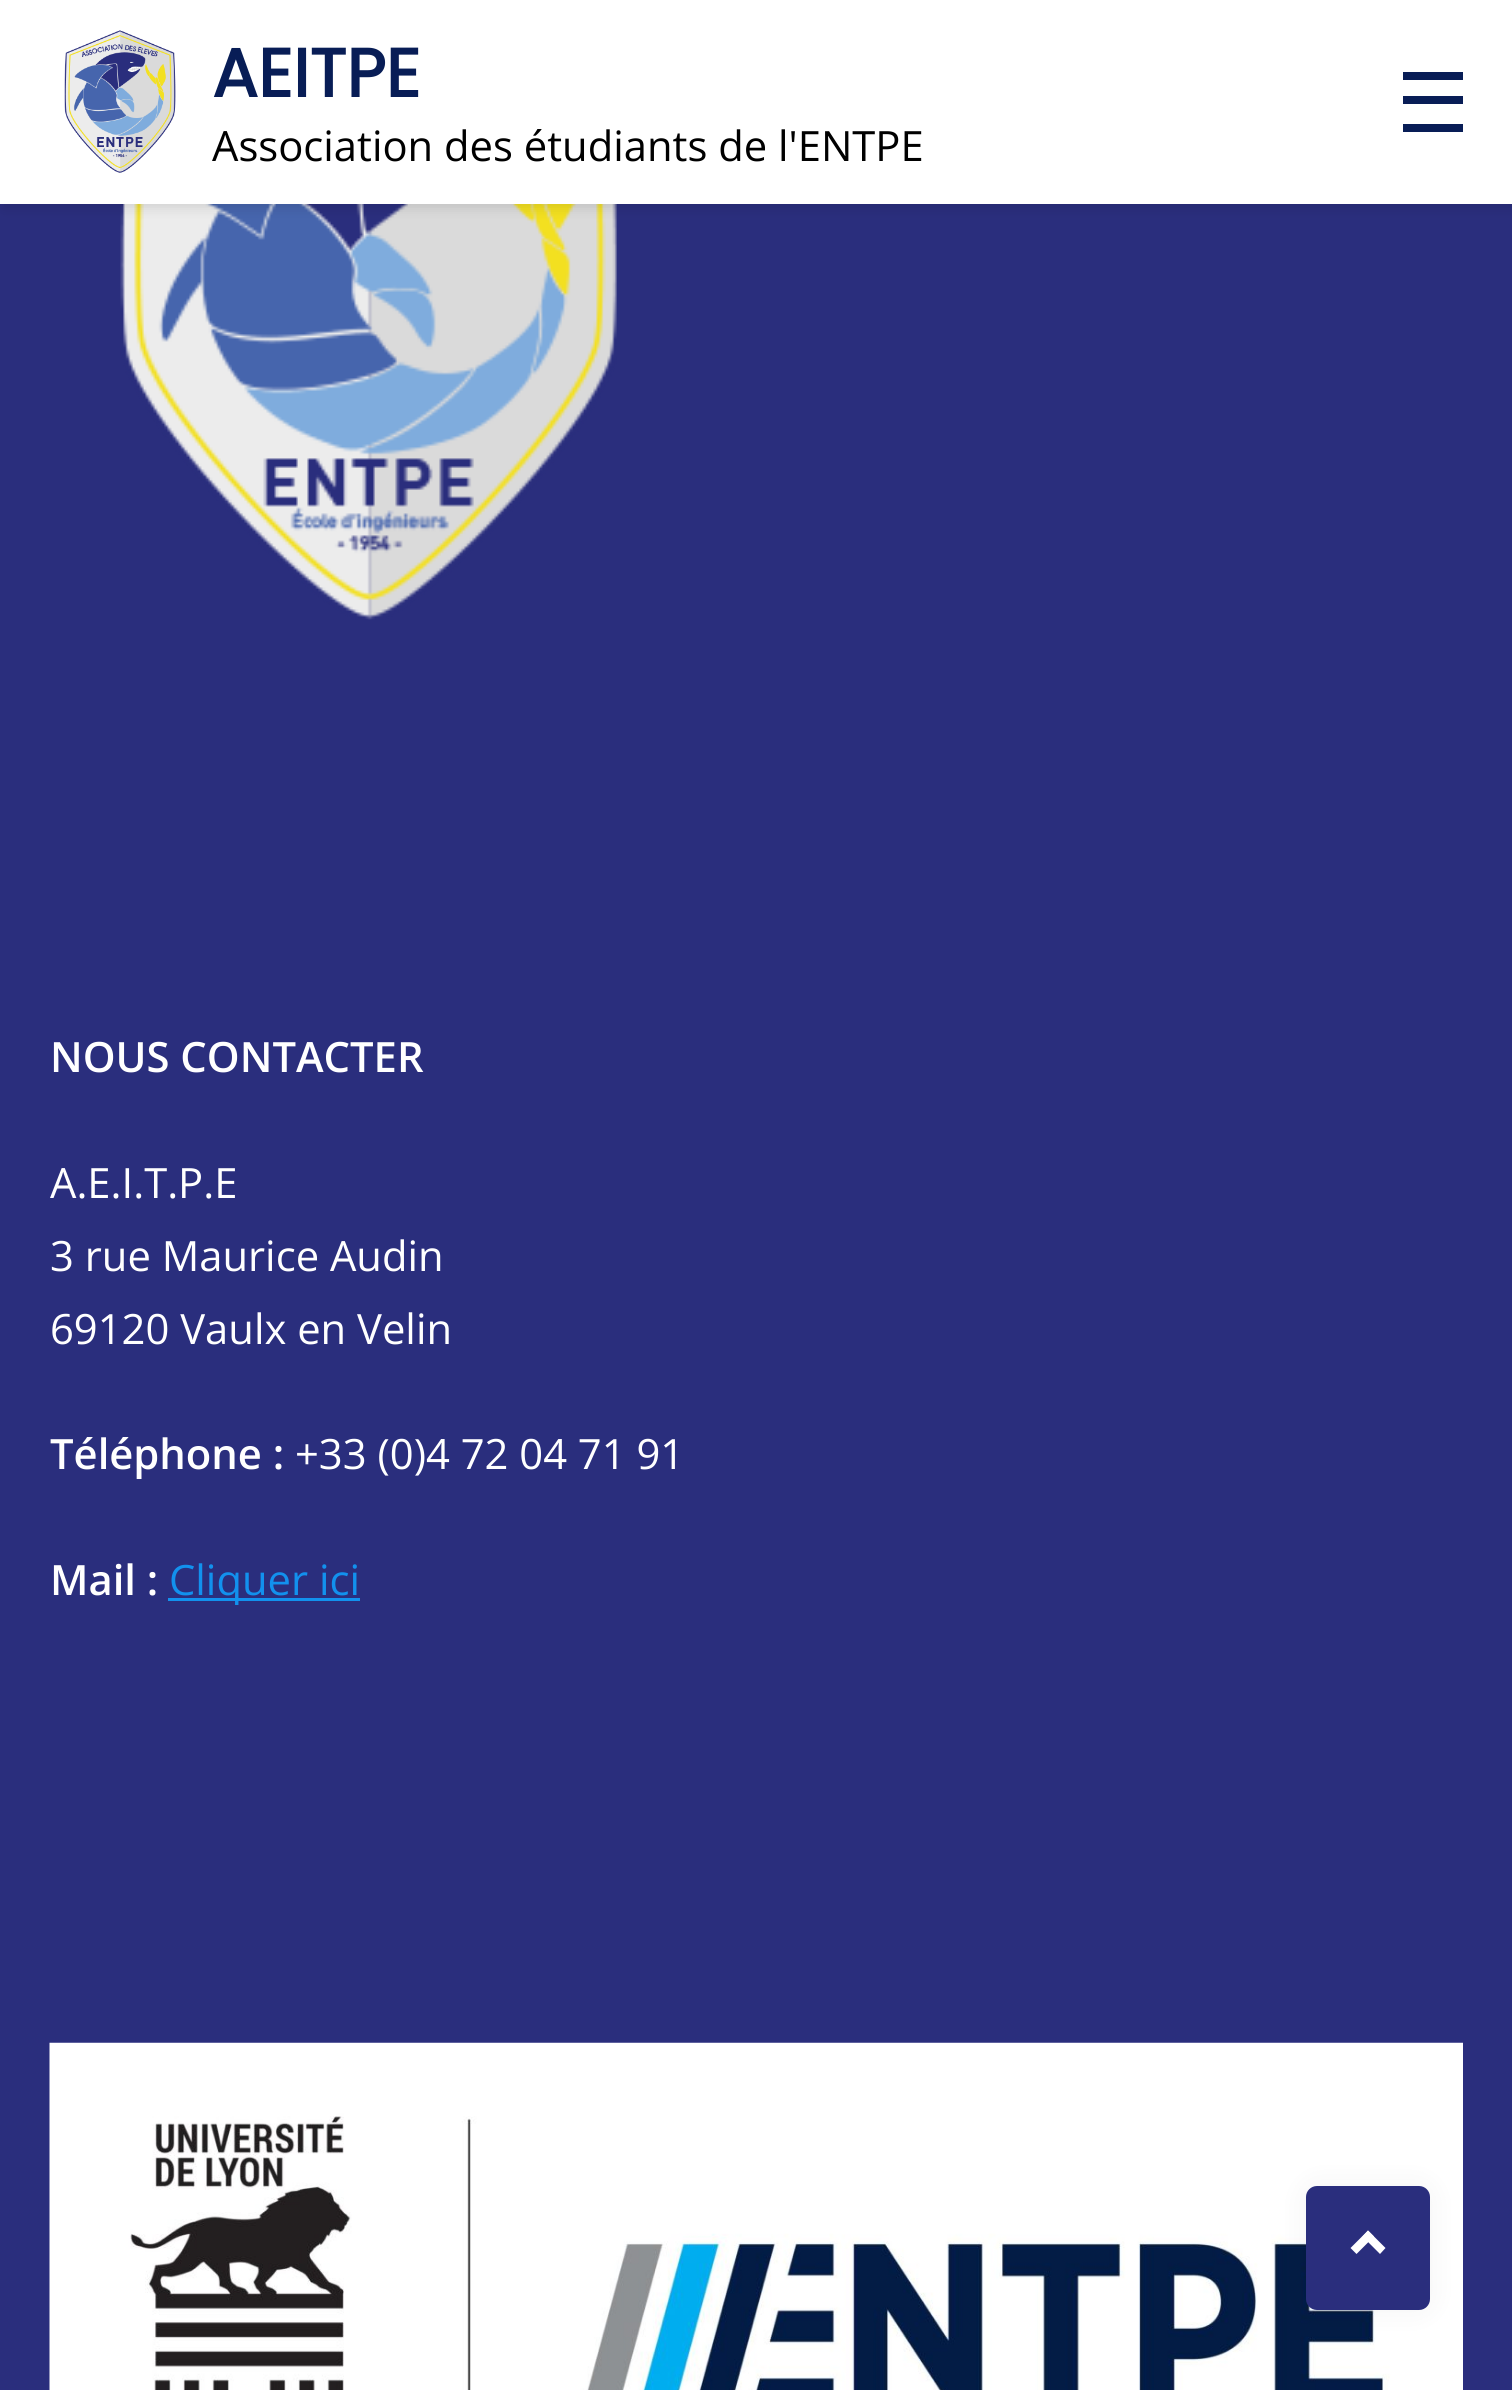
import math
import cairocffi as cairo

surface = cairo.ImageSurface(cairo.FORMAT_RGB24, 1512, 2390)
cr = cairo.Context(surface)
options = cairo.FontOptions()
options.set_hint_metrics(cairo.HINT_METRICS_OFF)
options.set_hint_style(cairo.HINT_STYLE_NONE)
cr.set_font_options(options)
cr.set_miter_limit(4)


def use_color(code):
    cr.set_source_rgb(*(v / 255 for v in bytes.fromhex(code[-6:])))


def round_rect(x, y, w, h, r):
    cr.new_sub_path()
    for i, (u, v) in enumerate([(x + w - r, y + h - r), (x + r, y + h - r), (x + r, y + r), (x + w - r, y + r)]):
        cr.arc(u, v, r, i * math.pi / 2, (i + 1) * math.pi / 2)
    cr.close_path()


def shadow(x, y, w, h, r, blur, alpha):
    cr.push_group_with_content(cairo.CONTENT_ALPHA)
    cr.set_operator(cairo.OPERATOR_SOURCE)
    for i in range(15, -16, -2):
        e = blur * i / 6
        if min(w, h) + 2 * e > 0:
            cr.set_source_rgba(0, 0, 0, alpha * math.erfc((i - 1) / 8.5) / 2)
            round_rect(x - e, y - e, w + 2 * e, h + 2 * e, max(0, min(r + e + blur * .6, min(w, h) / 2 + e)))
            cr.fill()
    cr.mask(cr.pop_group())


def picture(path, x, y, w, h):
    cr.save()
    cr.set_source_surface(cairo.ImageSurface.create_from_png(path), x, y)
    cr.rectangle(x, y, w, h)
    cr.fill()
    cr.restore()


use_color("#2a2e7d")
cr.paint()
picture("img2.png", 120, 204, 497, 416)
use_color("#000000")
shadow(3, 6, 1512, 203, 0, 5.5, 0.1)
use_color("#ffffff")
cr.rectangle(0, 0, 1512, 204)
cr.fill()
picture("img1.png", 64, 30, 112, 143)
cr.select_font_face("Poppins", cairo.FONT_SLANT_NORMAL, cairo.FONT_WEIGHT_BOLD)
cr.set_font_size(68)
use_color("#081d56")
cr.move_to(212, 97)
cr.show_text("AEITPE")
cr.select_font_face("Open Sans")
cr.set_font_size(41.75)
use_color("#000000")
cr.move_to(212, 161)
cr.show_text("Association des étudiants de l'ENTPE")
use_color("#081d56")
cr.rectangle(1403, 72, 60, 8)
cr.fill()
cr.rectangle(1403, 96, 60, 8)
cr.fill()
cr.rectangle(1403, 124, 60, 8)
cr.fill()
cr.select_font_face("Open Sans SemiBold")
use_color("#ffffff")
cr.move_to(50, 1072)
cr.show_text("NOUS CONTACTER")
cr.select_font_face("Open Sans")
cr.move_to(50, 1198)
cr.show_text("A.E.I.T.P.E")
cr.move_to(50, 1271)
cr.show_text("3 rue Maurice Audin")
cr.move_to(50, 1344)
cr.show_text("69120 Vaulx en Velin")
cr.select_font_face("Open Sans SemiBold")
cr.move_to(50, 1469)
cr.show_text("Téléphone :")
cr.select_font_face("Open Sans")
cr.move_to(295, 1469)
cr.show_text("+33 (0)4 72 04 71 91")
cr.select_font_face("Open Sans SemiBold")
cr.move_to(50, 1595)
cr.show_text("Mail :")
use_color("#1291ee")
cr.rectangle(168, 1598, 192, 3)
cr.fill()
cr.select_font_face("Open Sans")
cr.move_to(169, 1595)
cr.show_text("Cliquer ici")
picture("img3.png", 49, 2042, 1414, 348)
use_color("#000000")
shadow(1306, 2186, 124, 124, 11, 14, 0.05)
use_color("#2a2e7d")
round_rect(1306, 2186, 124, 124, 11)
cr.fill()
use_color("#ffffff")
cr.new_path()
cr.move_to(1356.5, 2254)
cr.line_to(1350.5, 2248)
cr.line_to(1368, 2230.5)
cr.line_to(1374, 2236.5)
cr.close_path()
cr.fill()
cr.new_path()
cr.move_to(1380, 2254)
cr.line_to(1362.5, 2236.5)
cr.line_to(1368, 2230.5)
cr.line_to(1385.5, 2248)
cr.close_path()
cr.fill()
surface.write_to_png("result.png")
